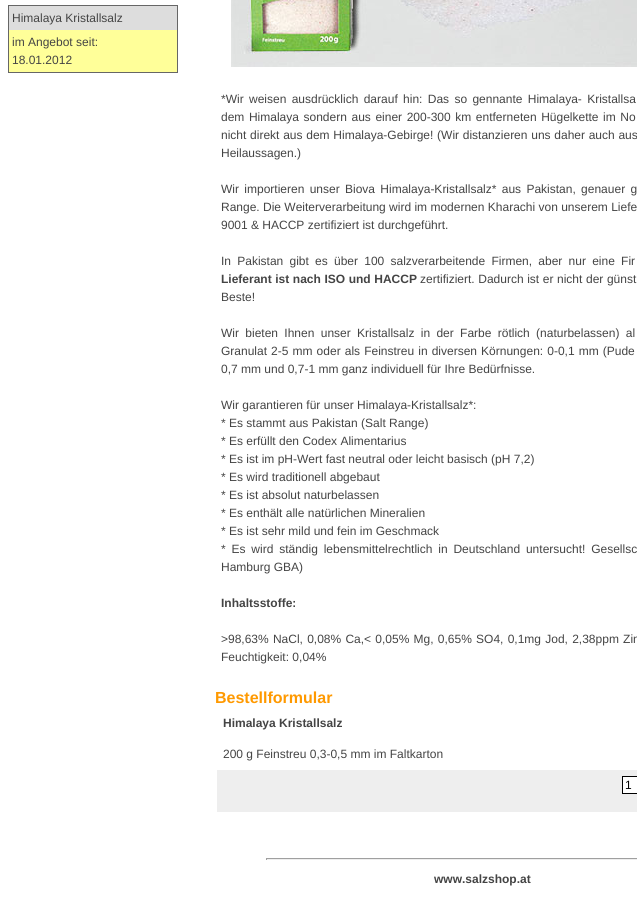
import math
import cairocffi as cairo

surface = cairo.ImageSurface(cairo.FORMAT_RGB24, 637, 909)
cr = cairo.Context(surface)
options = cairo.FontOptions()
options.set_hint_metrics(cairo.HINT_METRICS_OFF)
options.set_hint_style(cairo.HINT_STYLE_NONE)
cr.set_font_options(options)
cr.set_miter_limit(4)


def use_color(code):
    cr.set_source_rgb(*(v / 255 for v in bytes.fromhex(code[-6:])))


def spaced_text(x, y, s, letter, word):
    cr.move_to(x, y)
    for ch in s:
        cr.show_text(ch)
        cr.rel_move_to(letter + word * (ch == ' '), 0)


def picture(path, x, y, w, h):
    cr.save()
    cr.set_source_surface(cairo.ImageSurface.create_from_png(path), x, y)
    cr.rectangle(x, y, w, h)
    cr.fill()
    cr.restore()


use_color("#ffffff")
cr.paint()
use_color("#666666")
cr.rectangle(8, 5, 170, 68)
cr.fill()
use_color("#dddddd")
cr.rectangle(9, 6, 168, 24)
cr.fill()
cr.select_font_face("Liberation Sans")
cr.set_font_size(12)
use_color("#444444")
cr.move_to(12, 22)
cr.show_text("Himalaya Kristallsalz")
use_color("#ffff99")
cr.rectangle(9, 30, 168, 42)
cr.fill()
use_color("#444444")
cr.move_to(12, 46)
cr.show_text("im Angebot seit:")
cr.move_to(12, 64)
cr.show_text("18.01.2012")
picture("img1.png", 231, 0, 406, 67)
spaced_text(221, 103, "*Wir weisen ausdrücklich darauf hin: Das so gennante Himalaya- Kristallsa", 0, 2)
spaced_text(221, 121, "dem Himalaya sondern aus einer 200-300 km entferneten Hügelkette im No", 0, 1.25)
spaced_text(221, 139, "nicht direkt aus dem Himalaya-Gebirge! (Wir distanzieren uns daher auch aus", 0, 0.4)
cr.move_to(221, 157)
cr.show_text("Heilaussagen.)")
spaced_text(221, 193, "Wir importieren unser Biova Himalaya-Kristallsalz* aus Pakistan, genauer g", 0, 2)
cr.move_to(221, 211)
cr.show_text("Range. Die Weiterverarbeitung wird im modernen Kharachi von unserem Liefe")
cr.move_to(221, 229)
cr.show_text("9001 & HACCP zertifiziert ist durchgeführt.")
spaced_text(221, 265, "In Pakistan gibt es über 100 salzverarbeitende Firmen, aber nur eine Fir", 0, 2.9)
cr.select_font_face("Liberation Sans", cairo.FONT_SLANT_NORMAL, cairo.FONT_WEIGHT_BOLD)
spaced_text(221, 283, "Lieferant ist nach ISO und HACCP", 0, 0.25)
cr.select_font_face("Liberation Sans")
spaced_text(420, 283, "zertifiziert. Dadurch ist er nicht der günst", 0, 0.25)
cr.move_to(221, 301)
cr.show_text("Beste!")
spaced_text(221, 337, "Wir bieten Ihnen unser Kristallsalz in der Farbe rötlich (naturbelassen) al", 0, 3)
spaced_text(221, 355, "Granulat 2-5 mm oder als Feinstreu in diversen Körnungen: 0-0,1 mm (Pude", 0, 0.75)
cr.move_to(221, 373)
cr.show_text("0,7 mm und 0,7-1 mm ganz individuell für Ihre Bedürfnisse.")
cr.move_to(221, 409)
cr.show_text("Wir garantieren für unser Himalaya-Kristallsalz*:")
cr.move_to(221, 427)
cr.show_text("* Es stammt aus Pakistan (Salt Range)")
cr.move_to(221, 445)
cr.show_text("* Es erfüllt den Codex Alimentarius")
cr.move_to(221, 463)
cr.show_text("* Es ist im pH-Wert fast neutral oder leicht basisch (pH 7,2)")
cr.move_to(221, 481)
cr.show_text("* Es wird traditionell abgebaut")
cr.move_to(221, 499)
cr.show_text("* Es ist absolut naturbelassen")
cr.move_to(221, 517)
cr.show_text("* Es enthält alle natürlichen Mineralien")
cr.move_to(221, 535)
cr.show_text("* Es ist sehr mild und fein im Geschmack")
spaced_text(221, 553, "* Es wird ständig lebensmittelrechtlich in Deutschland untersucht! Gesellsc", 0, 2.5)
cr.move_to(221, 571)
cr.show_text("Hamburg GBA)")
cr.select_font_face("Liberation Sans", cairo.FONT_SLANT_NORMAL, cairo.FONT_WEIGHT_BOLD)
cr.move_to(221, 607)
cr.show_text("Inhaltsstoffe:")
cr.select_font_face("Liberation Sans")
spaced_text(221, 643, ">98,63% NaCl, 0,08% Ca,< 0,05% Mg, 0,65% SO4, 0,1mg Jod, 2,38ppm Zin", 0, 0.9)
cr.move_to(221, 661)
cr.show_text("Feuchtigkeit: 0,04%")
cr.select_font_face("Liberation Sans", cairo.FONT_SLANT_NORMAL, cairo.FONT_WEIGHT_BOLD)
cr.set_font_size(16)
use_color("#ff9900")
cr.move_to(215, 703)
cr.show_text("Bestellformular")
cr.set_font_size(12)
use_color("#444444")
cr.move_to(223, 727)
cr.show_text("Himalaya Kristallsalz")
cr.select_font_face("Liberation Sans")
cr.move_to(223, 758)
cr.show_text("200 g Feinstreu 0,3-0,5 mm im Faltkarton")
use_color("#eeeeee")
cr.rectangle(217, 770, 420, 42)
cr.fill()
use_color("#ffffff")
cr.rectangle(622.5, 776.5, 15, 17)
cr.fill_preserve()
use_color("#000000")
cr.set_line_width(1)
cr.stroke()
cr.move_to(625, 789)
cr.show_text("1")
use_color("#9f9f9f")
cr.rectangle(266, 858, 371, 1)
cr.fill()
use_color("#eeeeee")
cr.rectangle(266, 859, 371, 1)
cr.fill()
use_color("#9f9f9f")
cr.rectangle(266, 858, 1, 2)
cr.fill()
cr.select_font_face("Liberation Sans", cairo.FONT_SLANT_NORMAL, cairo.FONT_WEIGHT_BOLD)
use_color("#444444")
cr.move_to(434, 883)
cr.show_text("www.salzshop.at")
surface.write_to_png("result.png")
